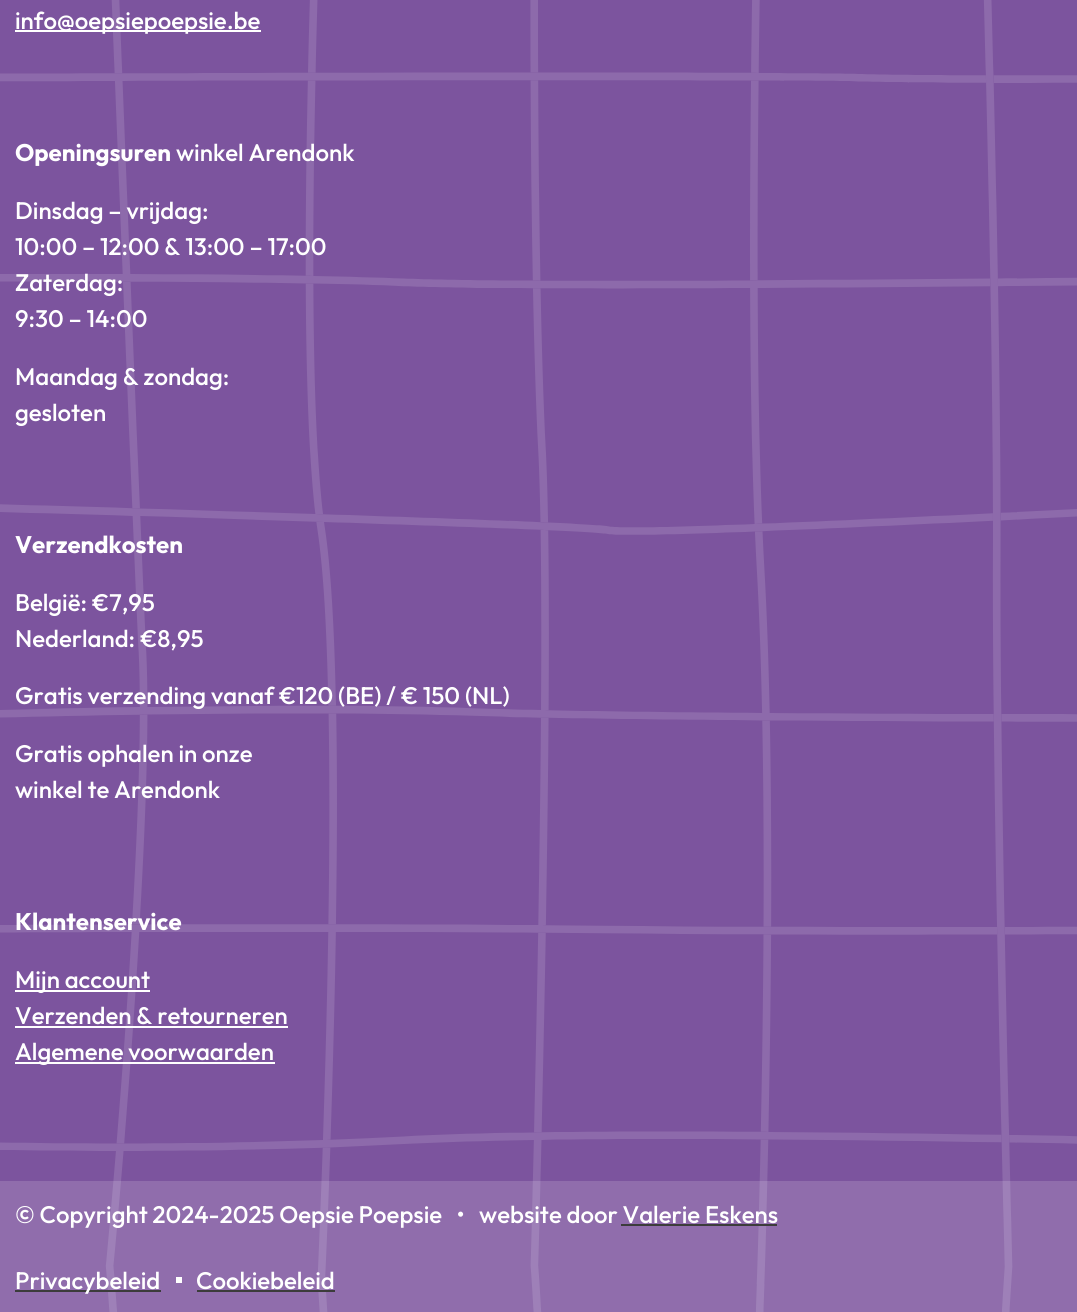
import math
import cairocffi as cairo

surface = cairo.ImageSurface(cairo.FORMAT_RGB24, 1077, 1312)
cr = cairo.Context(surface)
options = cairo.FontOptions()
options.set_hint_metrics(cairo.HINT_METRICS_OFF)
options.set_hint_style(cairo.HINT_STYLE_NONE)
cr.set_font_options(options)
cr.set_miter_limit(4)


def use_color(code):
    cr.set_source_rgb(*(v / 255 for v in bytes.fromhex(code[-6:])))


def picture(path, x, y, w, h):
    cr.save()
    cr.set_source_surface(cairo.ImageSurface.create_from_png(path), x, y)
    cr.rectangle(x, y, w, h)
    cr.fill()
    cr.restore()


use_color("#ffffff")
cr.paint()
picture("img1.png", 0, 0, 1077, 1312)
use_color("#ffffff")
cr.rectangle(15, 30, 246, 2)
cr.fill()
cr.select_font_face("Outfit Thin")
cr.set_font_size(24)
cr.move_to(15, 29)
cr.show_text("info@oepsiepoepsie.be")
cr.select_font_face("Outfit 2 Thin")
cr.move_to(15, 161)
cr.show_text("Openingsuren")
cr.select_font_face("Outfit Thin")
cr.move_to(176, 161)
cr.show_text("winkel Arendonk")
cr.move_to(15, 219)
cr.show_text("Dinsdag – vrijdag:")
cr.move_to(15, 255)
cr.show_text("10:00 – 12:00 & 13:00 – 17:00")
cr.move_to(15, 291)
cr.show_text("Zaterdag:")
cr.move_to(15, 327)
cr.show_text("9:30 – 14:00")
cr.move_to(15, 385)
cr.show_text("Maandag & zondag:")
cr.move_to(15, 421)
cr.show_text("gesloten")
cr.select_font_face("Outfit 2 Thin")
cr.move_to(15, 553)
cr.show_text("Verzendkosten")
cr.select_font_face("Outfit Thin")
cr.move_to(15, 611)
cr.show_text("België: €7,95")
cr.move_to(15, 647)
cr.show_text("Nederland: €8,95")
cr.move_to(15, 704)
cr.show_text("Gratis verzending vanaf €120 (BE) / € 150 (NL)")
cr.move_to(15, 762)
cr.show_text("Gratis ophalen in onze")
cr.move_to(15, 798)
cr.show_text("winkel te Arendonk")
cr.select_font_face("Outfit 2 Thin")
cr.move_to(15, 930)
cr.show_text("Klantenservice")
cr.rectangle(15, 990, 135, 2)
cr.fill()
cr.select_font_face("Outfit Thin")
cr.move_to(15, 988)
cr.show_text("Mijn account")
cr.move_to(15, 1024)
cr.show_text("Verzenden & retourneren")
cr.rectangle(15, 1026, 273, 2)
cr.fill()
cr.rectangle(15, 1062, 260, 2)
cr.fill()
cr.move_to(15, 1060)
cr.show_text("Algemene voorwaarden")
cr.set_source_rgba(1, 1, 1, 0.15)
cr.rectangle(0, 1181, 1077, 131)
cr.fill()
use_color("#ffffff")
cr.move_to(15, 1223)
cr.show_text("© Copyright 2024-2025 Oepsie Poepsie   •   website door Valerie Eskens")
use_color("#3c3c3b")
cr.rectangle(621, 1224, 156, 2)
cr.fill()
cr.rectangle(15, 1290, 146, 2)
cr.fill()
use_color("#ffffff")
cr.move_to(15, 1289)
cr.show_text("Privacybeleid")
cr.rectangle(176, 1277, 6, 6)
cr.fill()
cr.move_to(196, 1289)
cr.show_text("Cookiebeleid")
use_color("#3c3c3b")
cr.rectangle(197, 1290, 138, 2)
cr.fill()
surface.write_to_png("result.png")
